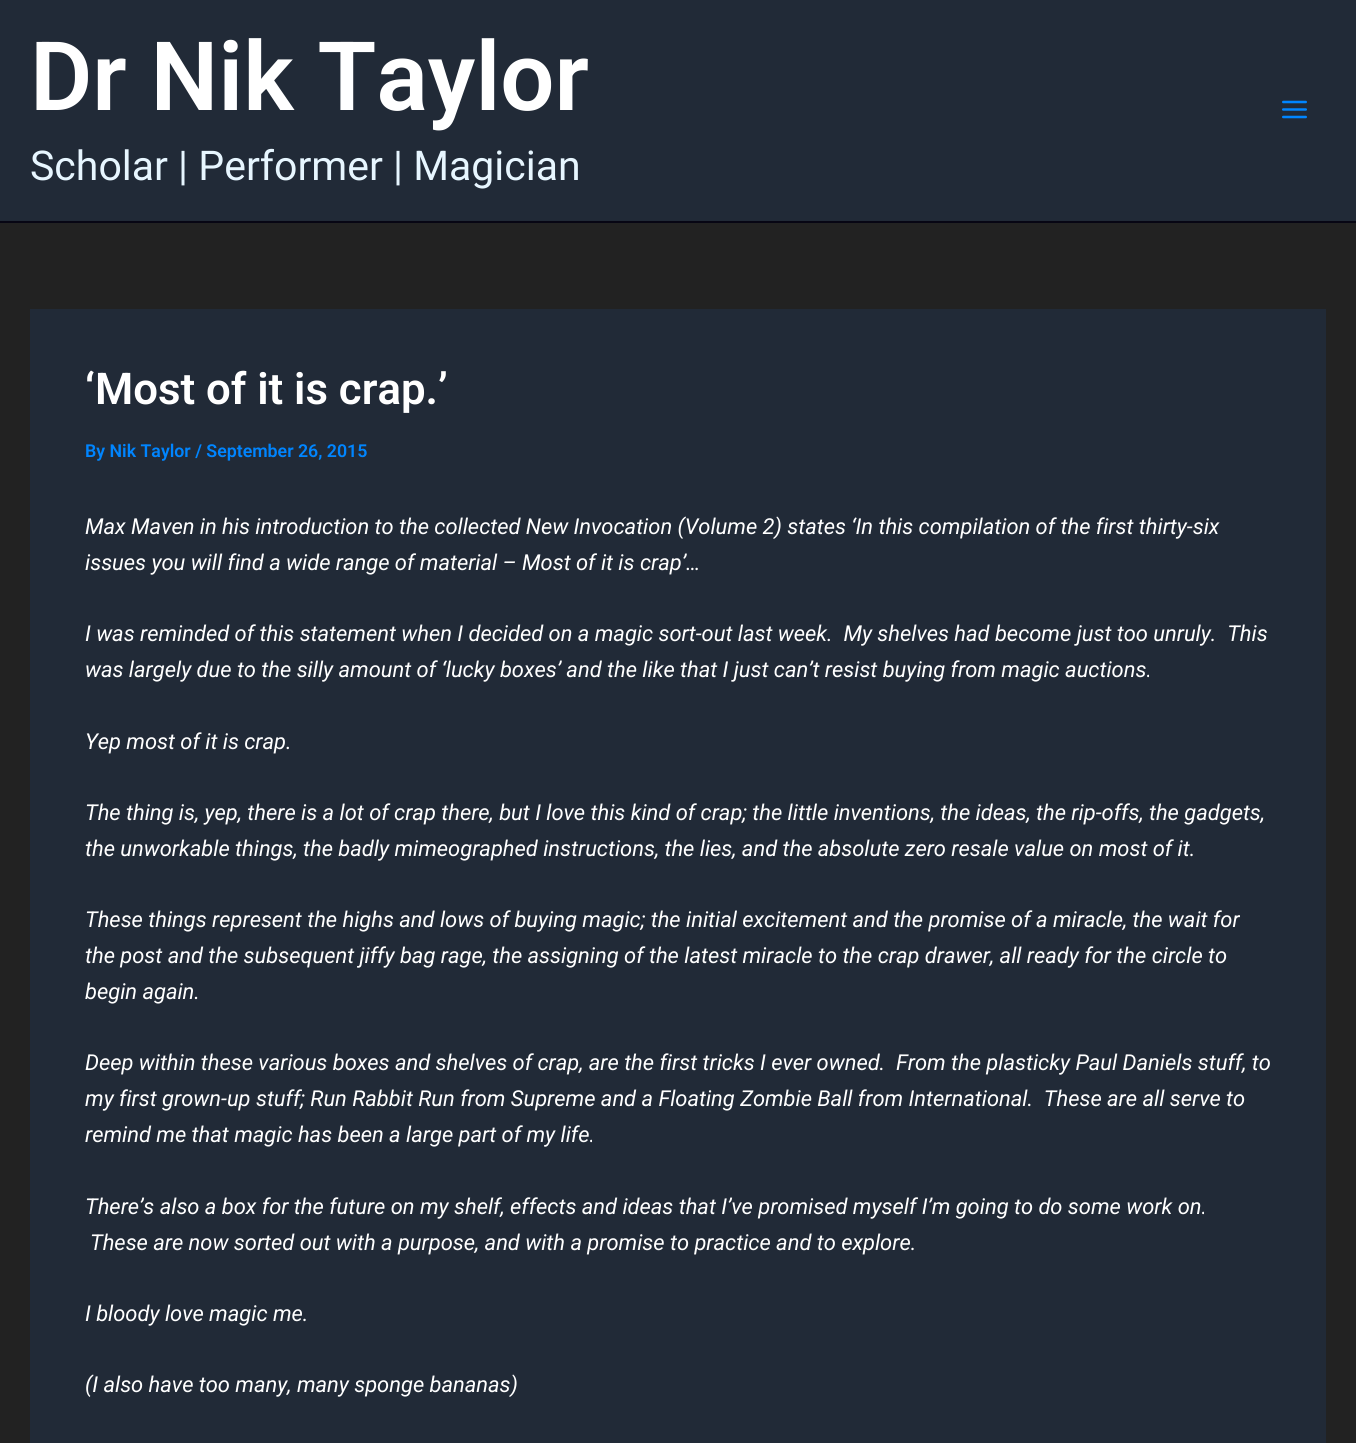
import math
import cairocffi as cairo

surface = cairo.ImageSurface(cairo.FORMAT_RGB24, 1356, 1443)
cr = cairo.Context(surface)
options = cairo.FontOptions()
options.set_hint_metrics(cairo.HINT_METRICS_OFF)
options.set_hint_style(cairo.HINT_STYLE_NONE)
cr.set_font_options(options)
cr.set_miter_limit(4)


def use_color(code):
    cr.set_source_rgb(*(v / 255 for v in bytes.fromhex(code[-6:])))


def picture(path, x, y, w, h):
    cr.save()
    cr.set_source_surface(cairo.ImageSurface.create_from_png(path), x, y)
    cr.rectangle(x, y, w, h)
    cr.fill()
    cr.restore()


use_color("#222222")
cr.paint()
use_color("#212a37")
cr.rectangle(0, 0, 1356, 221)
cr.fill()
use_color("#070614")
cr.rectangle(0, 221, 1356, 2)
cr.fill()
cr.select_font_face("Roboto SemiBold")
cr.set_font_size(95.75)
use_color("#ffffff")
cr.move_to(30, 110)
cr.show_text("Dr Nik Taylor")
cr.select_font_face("Roboto")
cr.set_font_size(41)
use_color("#e7f6ff")
cr.move_to(30, 180)
cr.show_text("Scholar | Performer | Magician")
picture("img1.png", 1282, 100, 25, 19)
use_color("#212a37")
cr.rectangle(30, 309, 1296, 1134)
cr.fill()
cr.select_font_face("Roboto SemiBold")
cr.set_font_size(43.75)
use_color("#ffffff")
cr.move_to(85, 404)
cr.show_text("‘Most of it is crap.’")
cr.set_font_size(17.75)
use_color("#0085ff")
cr.move_to(85, 457)
cr.show_text("By Nik Taylor / September 26, 2015")
cr.select_font_face("Roboto", cairo.FONT_SLANT_ITALIC)
cr.set_font_size(21.9)
use_color("#ffffff")
cr.move_to(85, 534)
cr.show_text("Max Maven in his introduction to the collected New Invocation (Volume 2) states ‘In this compilation of the first thirty-six")
cr.move_to(85, 570)
cr.show_text("issues you will find a wide range of material – Most of it is crap’…")
cr.move_to(85, 641)
cr.show_text("I was reminded of this statement when I decided on a magic sort-out last week.  My shelves had become just too unruly.  This")
cr.move_to(85, 677)
cr.show_text("was largely due to the silly amount of ‘lucky boxes’ and the like that I just can’t resist buying from magic auctions.")
cr.move_to(85, 749)
cr.show_text("Yep most of it is crap.")
cr.move_to(85, 820)
cr.show_text("The thing is, yep, there is a lot of crap there, but I love this kind of crap; the little inventions, the ideas, the rip-offs, the gadgets,")
cr.move_to(85, 856)
cr.show_text("the unworkable things, the badly mimeographed instructions, the lies, and the absolute zero resale value on most of it.")
cr.move_to(85, 927)
cr.show_text("These things represent the highs and lows of buying magic; the initial excitement and the promise of a miracle, the wait for")
cr.move_to(85, 963)
cr.show_text("the post and the subsequent jiffy bag rage, the assigning of the latest miracle to the crap drawer, all ready for the circle to")
cr.move_to(85, 999)
cr.show_text("begin again.")
cr.move_to(85, 1070)
cr.show_text("Deep within these various boxes and shelves of crap, are the first tricks I ever owned.  From the plasticky Paul Daniels stuff, to")
cr.move_to(85, 1106)
cr.show_text("my first grown-up stuff; Run Rabbit Run from Supreme and a Floating Zombie Ball from International.  These are all serve to")
cr.move_to(85, 1142)
cr.show_text("remind me that magic has been a large part of my life.")
cr.move_to(85, 1214)
cr.show_text("There’s also a box for the future on my shelf, effects and ideas that I’ve promised myself I’m going to do some work on.")
cr.move_to(90, 1250)
cr.show_text("These are now sorted out with a purpose, and with a promise to practice and to explore.")
cr.move_to(85, 1321)
cr.show_text("I bloody love magic me.")
cr.move_to(85, 1392)
cr.show_text("(I also have too many, many sponge bananas)")
surface.write_to_png("result.png")
